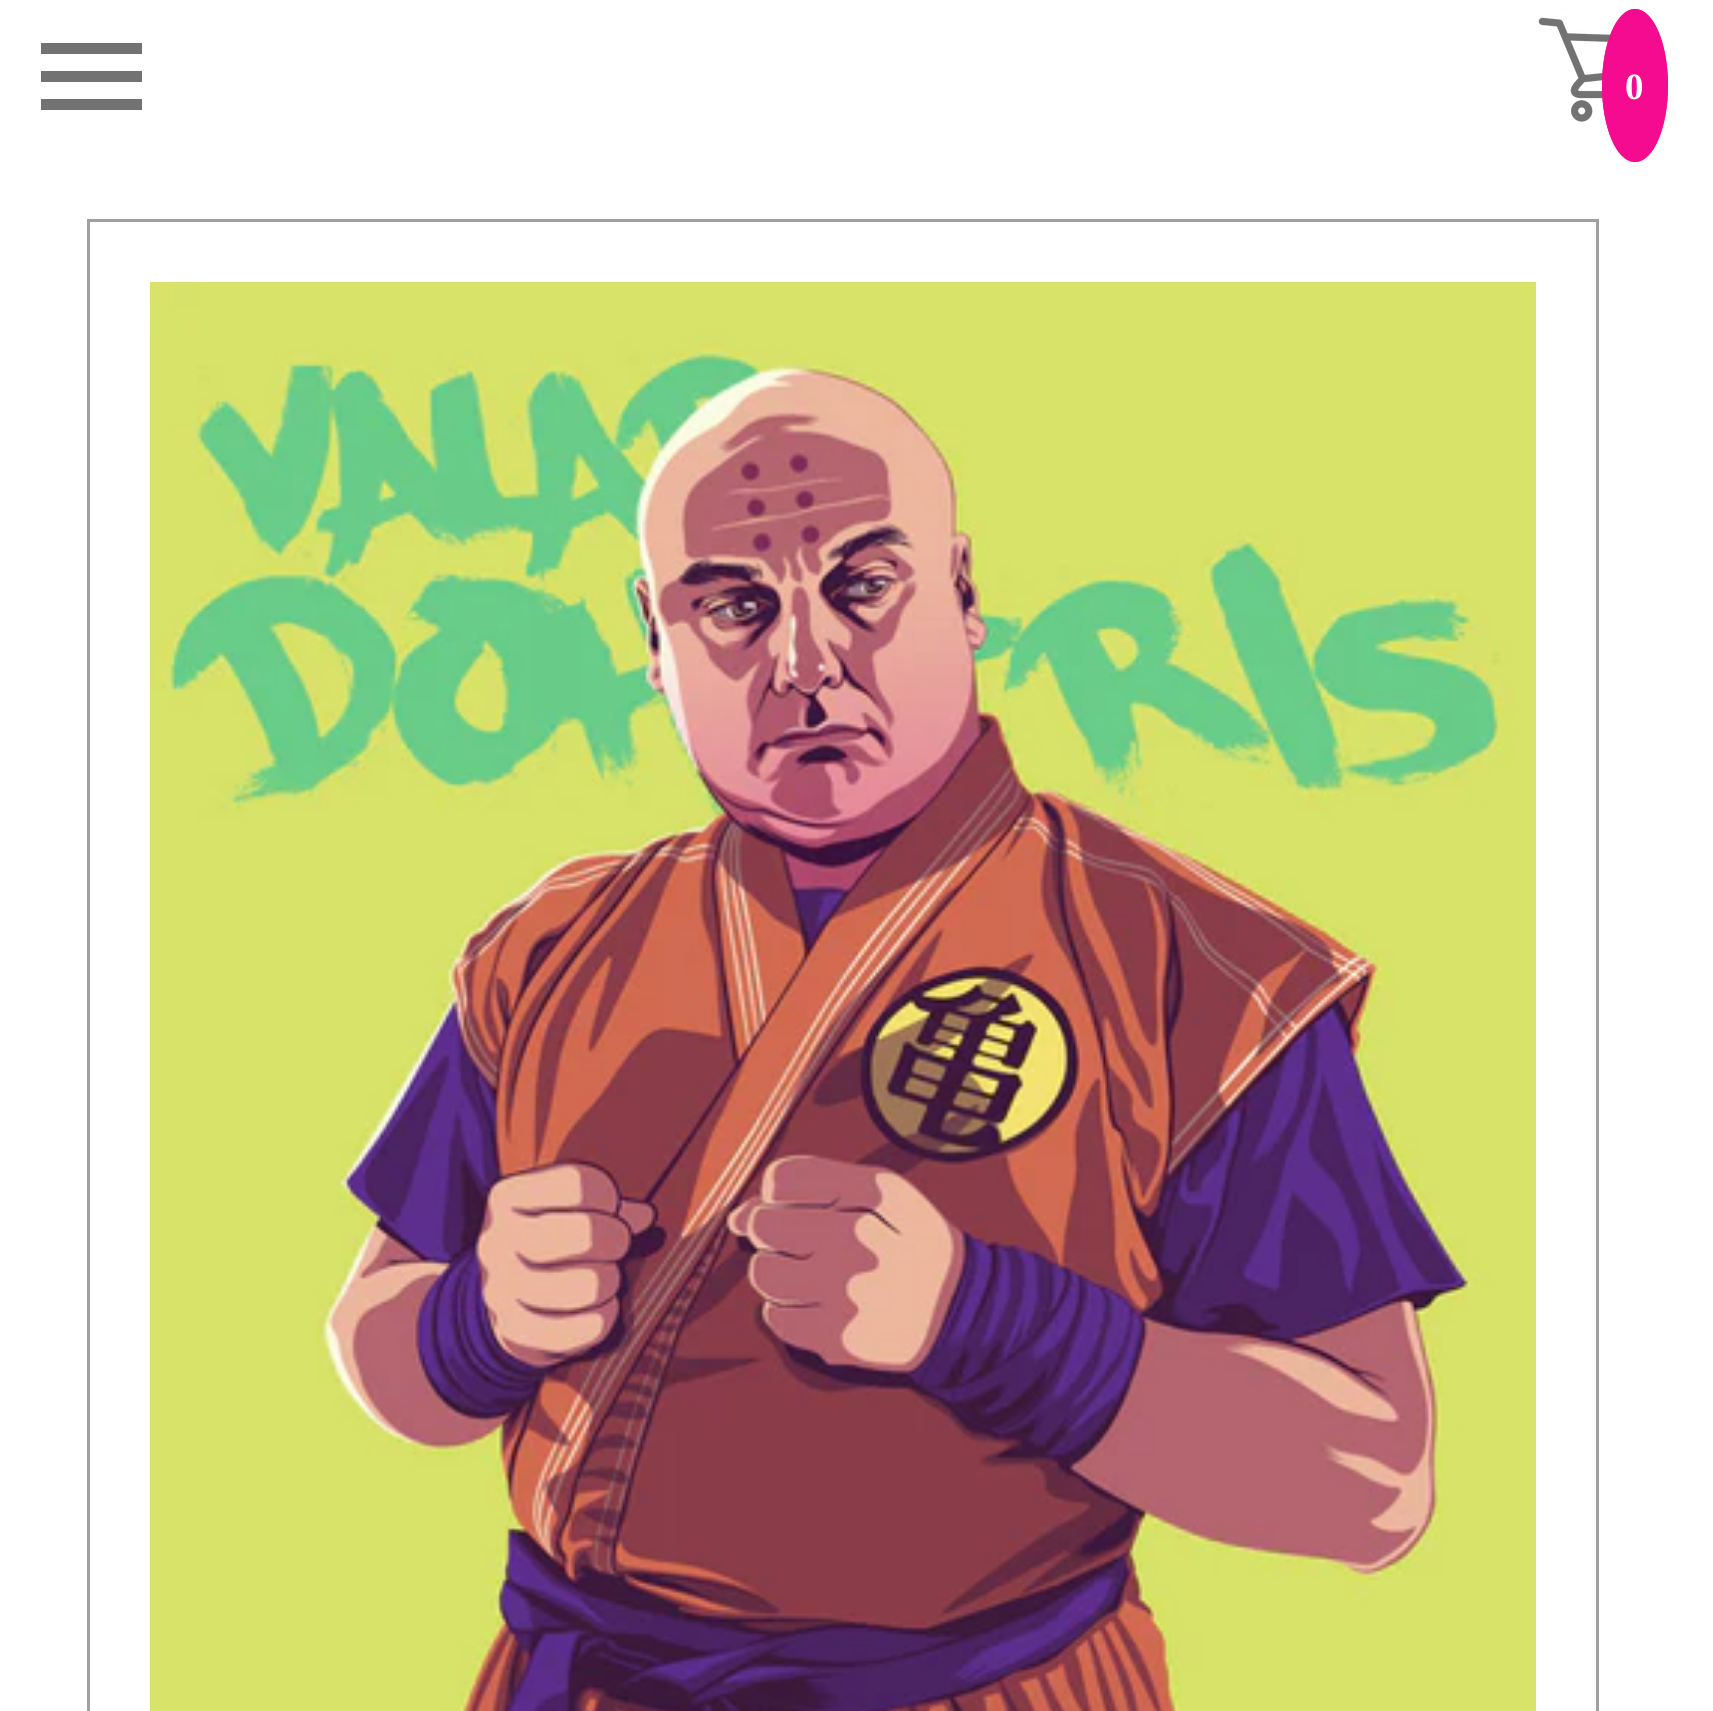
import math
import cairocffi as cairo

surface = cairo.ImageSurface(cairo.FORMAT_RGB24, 1713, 1711)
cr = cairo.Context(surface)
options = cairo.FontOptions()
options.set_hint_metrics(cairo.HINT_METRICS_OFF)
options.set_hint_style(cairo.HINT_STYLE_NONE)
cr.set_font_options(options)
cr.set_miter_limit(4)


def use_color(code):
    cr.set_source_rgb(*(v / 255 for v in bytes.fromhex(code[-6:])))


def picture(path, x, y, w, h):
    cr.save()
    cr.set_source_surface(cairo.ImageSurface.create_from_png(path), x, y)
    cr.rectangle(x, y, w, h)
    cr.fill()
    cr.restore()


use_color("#ffffff")
cr.paint()
use_color("#727272")
cr.new_path()
cr.move_to(41, 43)
cr.line_to(142, 43)
cr.line_to(142, 54)
cr.line_to(41, 54)
cr.line_to(41, 43)
cr.move_to(41, 71)
cr.line_to(142, 71)
cr.line_to(142, 82)
cr.line_to(41, 82)
cr.line_to(41, 71)
cr.move_to(41, 99)
cr.line_to(142, 99)
cr.line_to(142, 110)
cr.line_to(41, 110)
cr.close_path()
cr.fill()
picture("img1.png", 1538, 9, 73, 113)
use_color("#f50b8f")
cr.new_path()
cr.move_to(1635, 9)
cr.curve_to(1653, 9, 1668, 43.5, 1668, 85.5)
cr.curve_to(1668, 127.5, 1653, 162, 1635, 162)
cr.curve_to(1617, 162, 1602, 127.5, 1602, 85.5)
cr.curve_to(1602, 43.5, 1617, 9, 1635, 9)
cr.close_path()
cr.fill()
cr.new_path()
cr.move_to(1635, 10.5)
cr.curve_to(1652.5, 10.5, 1666.5, 44, 1666.5, 85.5)
cr.curve_to(1666.5, 127, 1652.5, 160.5, 1635, 160.5)
cr.curve_to(1617.5, 160.5, 1603.5, 127, 1603.5, 85.5)
cr.curve_to(1603.5, 44, 1617.5, 10.5, 1635, 10.5)
cr.close_path()
cr.set_line_width(3)
cr.stroke()
cr.select_font_face("Liberation Serif", cairo.FONT_SLANT_NORMAL, cairo.FONT_WEIGHT_BOLD)
cr.set_font_size(37)
use_color("#ffffff")
cr.move_to(1625, 99)
cr.show_text("0")
cr.rectangle(88.5, 220.5, 1509, 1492)
use_color("#a0a0a0")
cr.stroke()
picture("img2.png", 150, 282, 1386, 1429)
surface.write_to_png("result.png")
